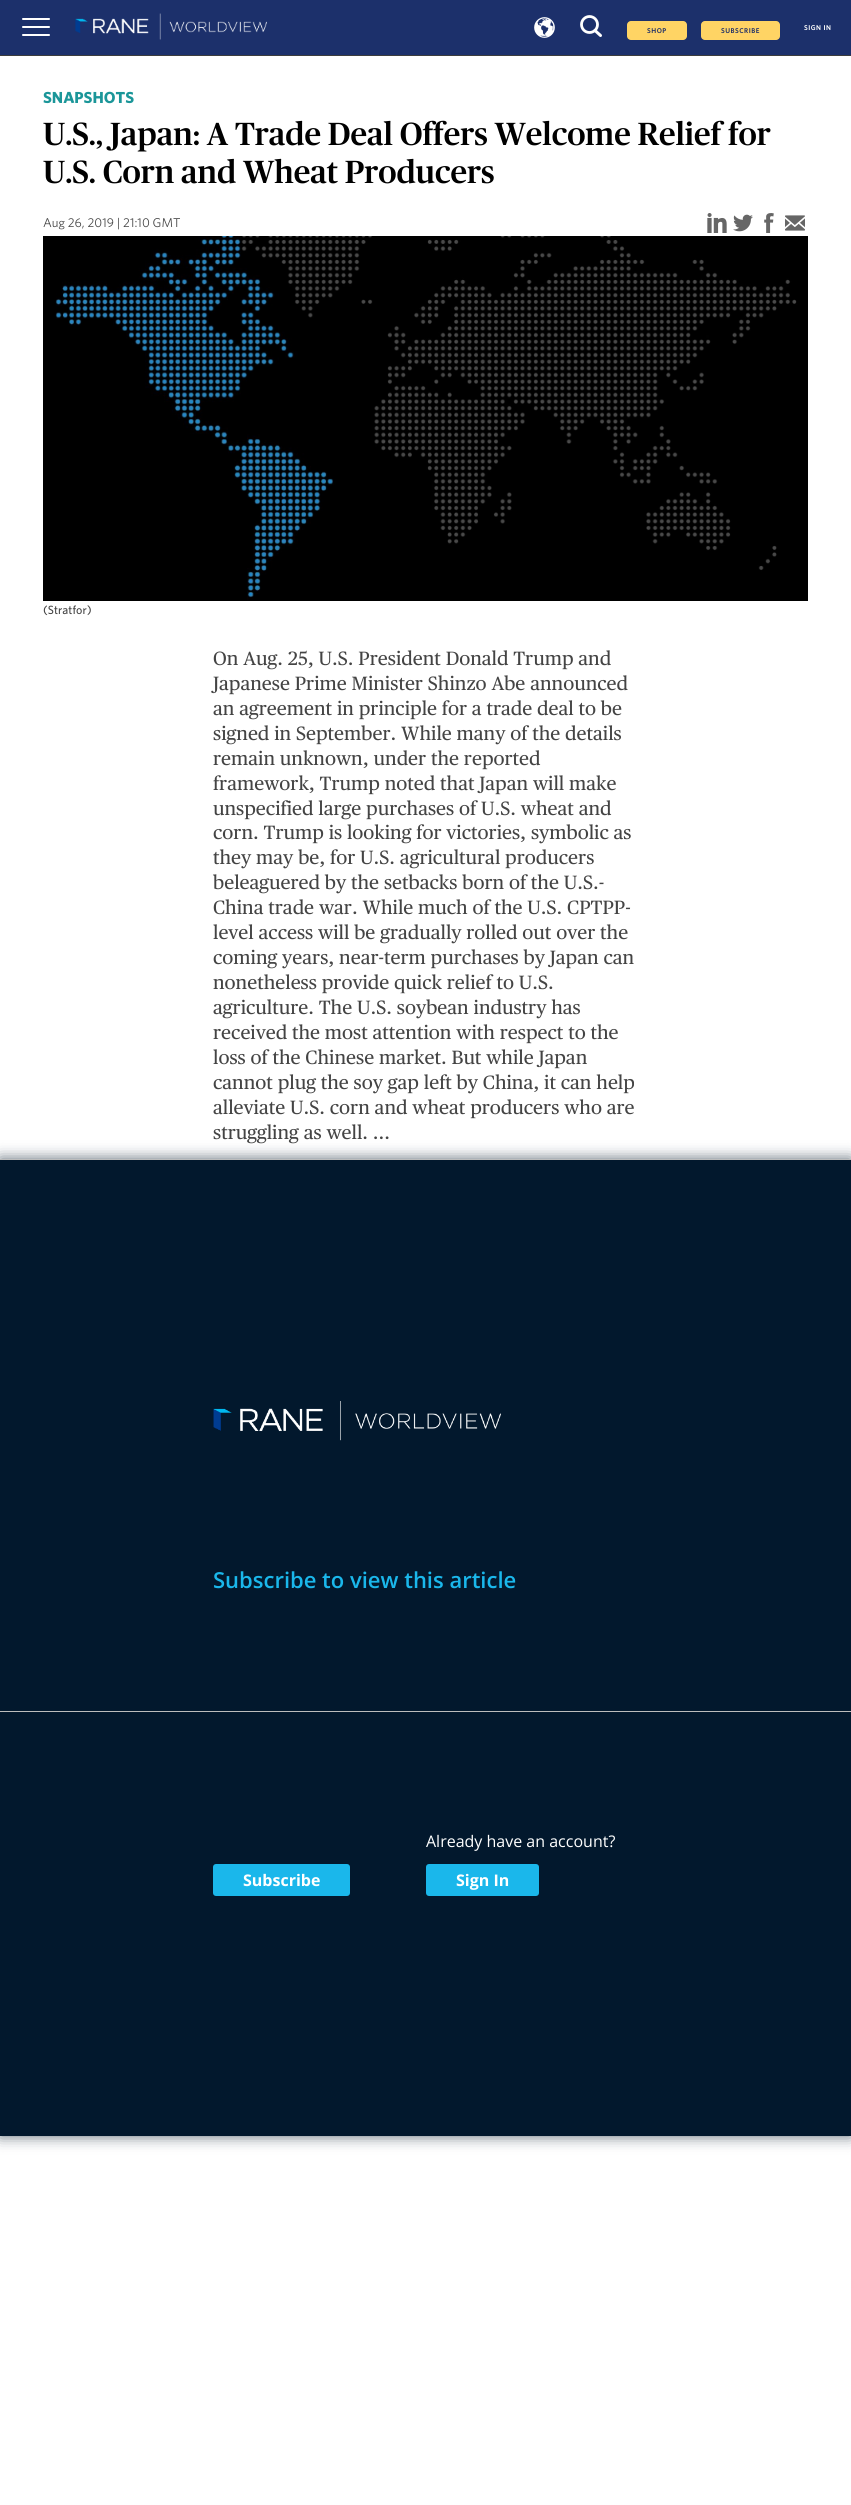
import math
import cairocffi as cairo

surface = cairo.ImageSurface(cairo.FORMAT_RGB24, 851, 2505)
cr = cairo.Context(surface)
options = cairo.FontOptions()
options.set_hint_metrics(cairo.HINT_METRICS_OFF)
options.set_hint_style(cairo.HINT_STYLE_NONE)
cr.set_font_options(options)
cr.set_miter_limit(4)


def use_color(code):
    cr.set_source_rgb(*(v / 255 for v in bytes.fromhex(code[-6:])))


def spaced_text(x, y, s, letter, word):
    cr.move_to(x, y)
    for ch in s:
        cr.show_text(ch)
        cr.rel_move_to(letter + word * (ch == ' '), 0)


def round_rect(x, y, w, h, r):
    cr.new_sub_path()
    for i, (u, v) in enumerate([(x + w - r, y + h - r), (x + r, y + h - r), (x + r, y + r), (x + w - r, y + r)]):
        cr.arc(u, v, r, i * math.pi / 2, (i + 1) * math.pi / 2)
    cr.close_path()


def shadow(x, y, w, h, r, blur, alpha):
    cr.push_group_with_content(cairo.CONTENT_ALPHA)
    cr.set_operator(cairo.OPERATOR_SOURCE)
    for i in range(15, -16, -2):
        e = blur * i / 6
        if min(w, h) + 2 * e > 0:
            cr.set_source_rgba(0, 0, 0, alpha * math.erfc((i - 1) / 8.5) / 2)
            round_rect(x - e, y - e, w + 2 * e, h + 2 * e, max(0, min(r + e + blur * .6, min(w, h) / 2 + e)))
            cr.fill()
    cr.mask(cr.pop_group())


def picture(path, x, y, w, h):
    cr.save()
    cr.set_source_surface(cairo.ImageSurface.create_from_png(path), x, y)
    cr.rectangle(x, y, w, h)
    cr.fill()
    cr.restore()


use_color("#ffffff")
cr.paint()
use_color("#1c306b")
cr.rectangle(0, 0, 851, 55)
cr.fill()
use_color("#3d3d3d")
cr.rectangle(0, 55, 851, 1)
cr.fill()
use_color("#ffffff")
round_rect(22, 26, 28, 2, 1)
cr.fill()
round_rect(22, 18, 28, 2, 1)
cr.fill()
round_rect(22, 34, 28, 2, 1)
cr.fill()
picture("img1.png", 75, 13, 192, 27)
picture("img2.png", 534, 17, 21, 21)
cr.new_path()
cr.move_to(595, 30.5)
cr.line_to(600.5, 35.5)
cr.set_line_width(3)
cr.set_line_cap(cairo.LINE_CAP_ROUND)
cr.set_line_join(cairo.LINE_JOIN_ROUND)
cr.stroke()
cr.arc(589.5, 24.5, 8, 0, 2 * math.pi)
cr.set_line_width(2.8)
cr.set_line_cap(cairo.LINE_CAP_BUTT)
cr.set_line_join(cairo.LINE_JOIN_MITER)
cr.stroke()
use_color("#ffd464")
round_rect(627, 21, 60, 19, 4)
cr.fill()
cr.select_font_face("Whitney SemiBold")
cr.set_font_size(7)
use_color("#203067")
spaced_text(647, 33, "SHOP", 0.5, 0)
use_color("#ffd464")
round_rect(701, 21, 79, 19, 4)
cr.fill()
use_color("#203067")
spaced_text(721, 33, "SUBSCRIBE", 0.5, 0)
use_color("#ffffff")
spaced_text(804, 30, "SIGN IN", 0.5, 0)
cr.select_font_face("Whitney", cairo.FONT_SLANT_NORMAL, cairo.FONT_WEIGHT_BOLD)
cr.set_font_size(16)
use_color("#1b9699")
cr.move_to(43, 103)
cr.show_text("SNAPSHOTS")
cr.select_font_face("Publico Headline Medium")
cr.set_font_size(32)
use_color("#000000")
cr.move_to(43, 145)
cr.show_text("U.S., Japan: A Trade Deal Offers Welcome Relief for")
cr.move_to(43, 183)
cr.show_text("U.S. Corn and Wheat Producers")
cr.select_font_face("Whitney")
cr.set_font_size(12.75)
use_color("#444444")
cr.move_to(43, 227)
cr.show_text("Aug 26, 2019 | 21:10 GMT")
picture("img3.png", 707, 213, 20, 20)
picture("img4.png", 733, 214, 20, 18)
picture("img5.png", 764, 213, 10, 20)
picture("img6.png", 785, 215, 20, 16)
picture("img7.png", 43, 236, 765, 365)
cr.select_font_face("Whitney Medium")
cr.set_font_size(12)
cr.move_to(43, 614)
cr.show_text("(Stratfor)")
cr.select_font_face("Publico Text")
cr.set_font_size(19.2)
cr.move_to(213, 665)
cr.show_text("On Aug. 25, U.S. President Donald Trump and")
cr.move_to(213, 690)
cr.show_text("Japanese Prime Minister Shinzo Abe announced")
cr.move_to(213, 715)
cr.show_text("an agreement in principle for a trade deal to be")
cr.move_to(213, 740)
cr.show_text("signed in September. While many of the details")
cr.move_to(213, 765)
cr.show_text("remain unknown, under the reported")
cr.move_to(213, 790)
cr.show_text("framework, Trump noted that Japan will make")
cr.move_to(213, 815)
cr.show_text("unspecified large purchases of U.S. wheat and")
cr.move_to(213, 839)
cr.show_text("corn. Trump is looking for victories, symbolic as")
cr.move_to(213, 864)
cr.show_text("they may be, for U.S. agricultural producers")
cr.move_to(213, 889)
cr.show_text("beleaguered by the setbacks born of the U.S.-")
cr.move_to(213, 914)
cr.show_text("China trade war. While much of the U.S. CPTPP-")
cr.move_to(213, 939)
cr.show_text("level access will be gradually rolled out over the")
cr.move_to(213, 964)
cr.show_text("coming years, near-term purchases by Japan can")
cr.move_to(213, 989)
cr.show_text("nonetheless provide quick relief to U.S.")
cr.move_to(213, 1014)
cr.show_text("agriculture. The U.S. soybean industry has")
cr.move_to(213, 1039)
cr.show_text("received the most attention with respect to the")
cr.move_to(213, 1064)
cr.show_text("loss of the Chinese market. But while Japan")
cr.move_to(213, 1089)
cr.show_text("cannot plug the soy gap left by China, it can help")
cr.move_to(213, 1114)
cr.show_text("alleviate U.S. corn and wheat producers who are")
use_color("#5c6975")
shadow(0, 1159, 851, 977, 0, 7.5, 1)
use_color("#444444")
cr.move_to(213, 1139)
cr.show_text("struggling as well. ...")
use_color("#02182d")
cr.rectangle(0, 1160, 851, 976)
cr.fill()
use_color("#bdbdbd")
cr.rectangle(0, 1159, 851, 1)
cr.fill()
picture("img8.png", 213, 1401, 288, 40)
cr.select_font_face("Open Sans SemiBold")
cr.set_font_size(22)
use_color("#1ab7eb")
cr.move_to(213, 1588)
cr.show_text("Subscribe to view this article")
use_color("#bdbdbd")
cr.rectangle(0, 1711, 851, 1)
cr.fill()
use_color("#1ab7eb")
round_rect(213, 1864, 137, 32, 3)
cr.fill()
cr.select_font_face("Open Sans", cairo.FONT_SLANT_NORMAL, cairo.FONT_WEIGHT_BOLD)
cr.set_font_size(16)
use_color("#ffffff")
cr.move_to(243, 1886)
cr.show_text("Subscribe")
cr.select_font_face("Open Sans")
cr.move_to(426, 1847)
cr.show_text("Already have an account?")
use_color("#1ab7eb")
round_rect(426, 1864, 113, 32, 3)
cr.fill()
cr.select_font_face("Open Sans", cairo.FONT_SLANT_NORMAL, cairo.FONT_WEIGHT_BOLD)
use_color("#ffffff")
cr.move_to(456, 1886)
cr.show_text("Sign In")
surface.write_to_png("result.png")
